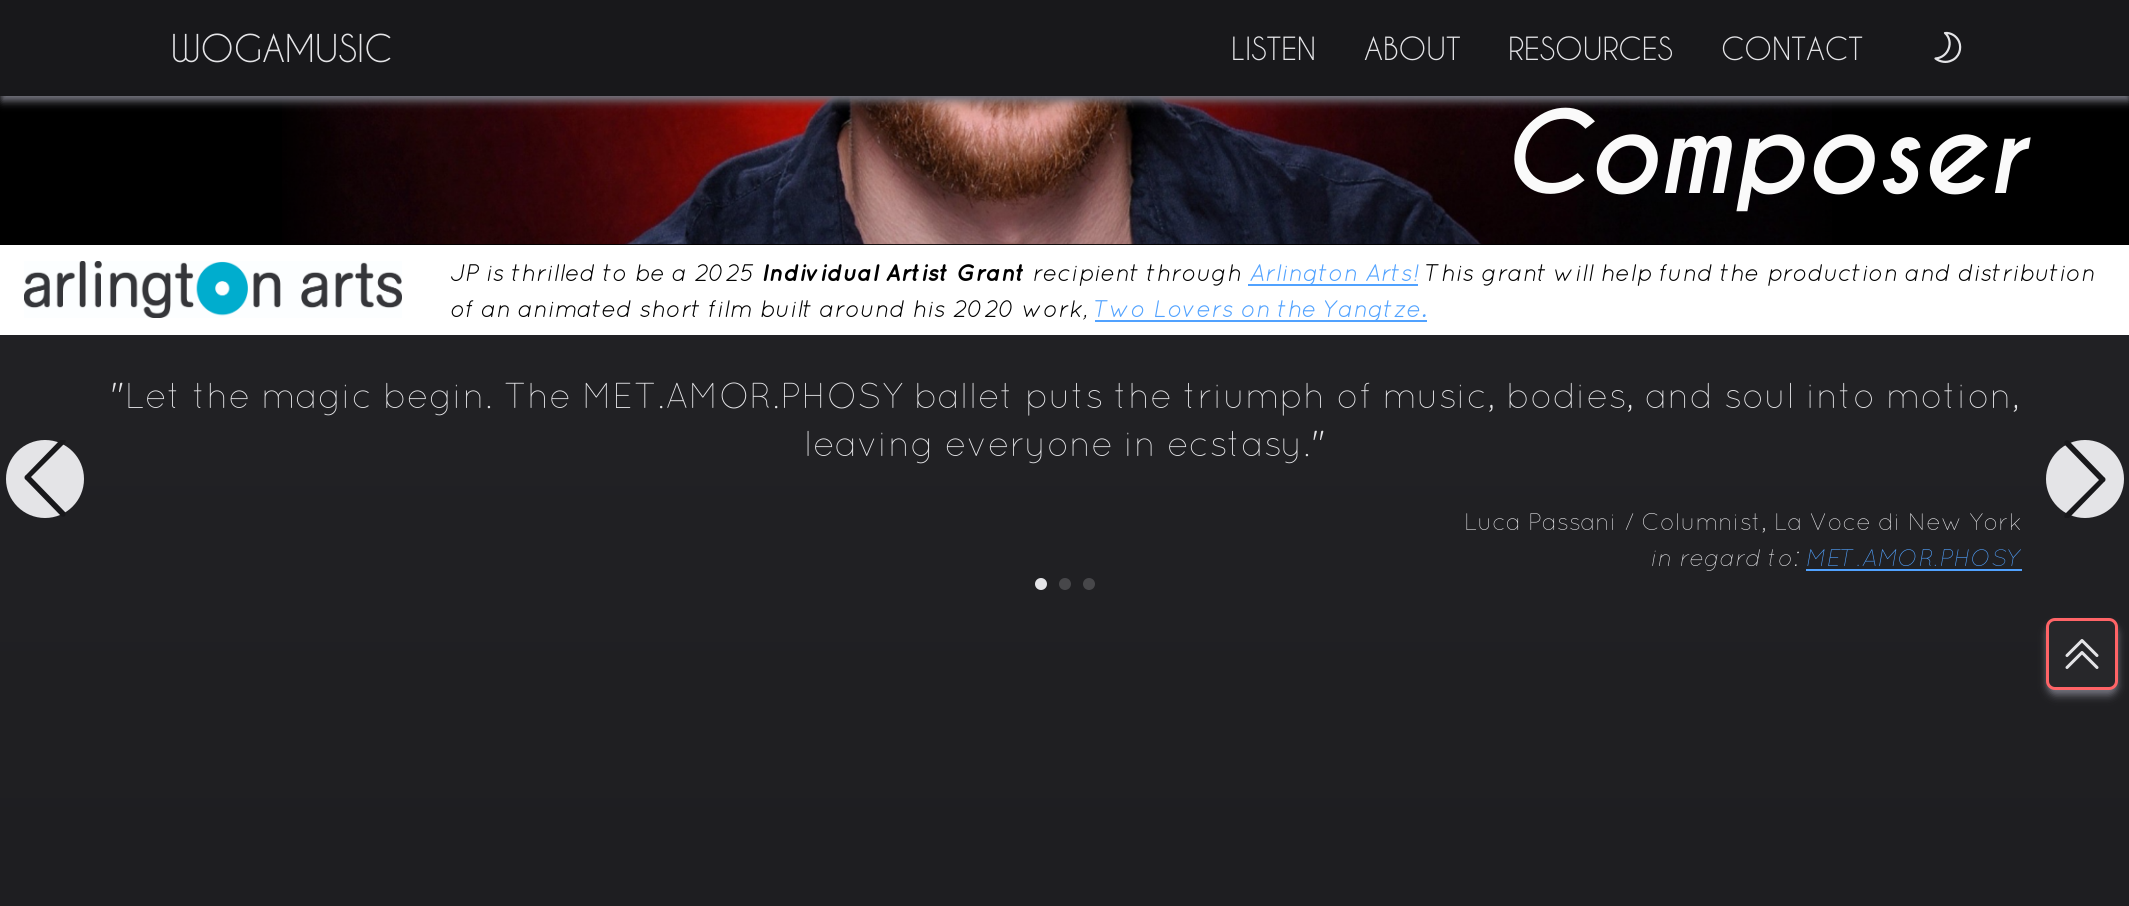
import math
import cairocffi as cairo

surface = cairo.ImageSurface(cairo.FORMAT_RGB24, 2129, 906)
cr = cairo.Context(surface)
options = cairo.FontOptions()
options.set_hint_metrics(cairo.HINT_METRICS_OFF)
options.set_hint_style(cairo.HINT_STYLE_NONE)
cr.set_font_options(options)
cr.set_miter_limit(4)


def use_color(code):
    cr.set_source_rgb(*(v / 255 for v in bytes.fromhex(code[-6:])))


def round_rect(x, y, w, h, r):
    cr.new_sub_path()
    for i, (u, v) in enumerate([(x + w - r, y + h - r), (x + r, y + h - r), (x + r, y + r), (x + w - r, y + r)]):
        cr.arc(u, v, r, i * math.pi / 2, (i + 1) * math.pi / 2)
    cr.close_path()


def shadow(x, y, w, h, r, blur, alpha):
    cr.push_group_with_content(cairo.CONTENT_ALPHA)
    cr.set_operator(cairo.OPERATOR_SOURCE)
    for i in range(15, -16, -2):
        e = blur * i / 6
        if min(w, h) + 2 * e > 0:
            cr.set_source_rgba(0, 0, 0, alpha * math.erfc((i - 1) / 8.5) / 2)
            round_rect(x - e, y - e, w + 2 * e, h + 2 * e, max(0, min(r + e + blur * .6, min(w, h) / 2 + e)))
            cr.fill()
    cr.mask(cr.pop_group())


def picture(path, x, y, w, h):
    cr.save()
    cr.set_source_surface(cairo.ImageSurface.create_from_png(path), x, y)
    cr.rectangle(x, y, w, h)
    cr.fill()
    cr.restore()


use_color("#ffffff")
cr.paint()
gradient = cairo.LinearGradient(1065, -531, 1065, 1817)
gradient.add_color_stop_rgba(0, 0.153, 0.153, 0.165, 1)
gradient.add_color_stop_rgba(1, 0.094, 0.094, 0.106, 1)
cr.set_source(gradient)
cr.rectangle(0, 335, 2129, 571)
cr.fill()
use_color("#000000")
cr.rectangle(0, 96, 2129, 149)
cr.fill()
picture("img1.png", 282, 96, 1550, 149)
use_color("#71717b")
shadow(3, 6, 2124, 90, 0, 3, 1)
shadow(2, 8, 2127, 93, 0, 4.5, 1)
use_color("#18181b")
cr.rectangle(0, 0, 2129, 96)
cr.fill()
cr.select_font_face("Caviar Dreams")
cr.set_font_size(36)
use_color("#e4e4e7")
cr.move_to(171, 62)
cr.show_text("WOGAMUSIC")
cr.set_font_size(30)
cr.move_to(1231, 60)
cr.show_text("LISTEN")
cr.move_to(1364, 60)
cr.show_text("ABOUT")
cr.move_to(1508, 60)
cr.show_text("RESOURCES")
cr.move_to(1721, 60)
cr.show_text("CONTACT")
cr.new_path()
cr.move_to(1935.5, 58.5)
cr.curve_to(1948.5, 57.5, 1954.5, 41.5, 1945, 33)
cr.curve_to(1951, 32.5, 1956.5, 36, 1959, 41.5)
cr.curve_to(1962, 48.5, 1959, 57.5, 1951.5, 60.5)
cr.curve_to(1946.5, 63, 1940, 62, 1935.5, 58.5)
cr.close_path()
cr.set_line_width(2.2)
cr.set_line_cap(cairo.LINE_CAP_ROUND)
cr.set_line_join(cairo.LINE_JOIN_ROUND)
cr.stroke()
cr.select_font_face("Caviar Dreams", cairo.FONT_SLANT_ITALIC, cairo.FONT_WEIGHT_BOLD)
cr.set_font_size(108)
use_color("#fafafa")
cr.move_to(1501, 193)
cr.show_text("Composer")
picture("img2.png", 24, 261, 378, 57)
cr.select_font_face("Quicksand", cairo.FONT_SLANT_ITALIC)
cr.set_font_size(24)
use_color("#000000")
cr.move_to(450, 281)
cr.show_text("JP is thrilled to be a 2025")
cr.select_font_face("Quicksand", cairo.FONT_SLANT_ITALIC, cairo.FONT_WEIGHT_BOLD)
cr.move_to(761, 281)
cr.show_text("Individual Artist Grant")
cr.select_font_face("Quicksand", cairo.FONT_SLANT_ITALIC)
cr.move_to(1032, 281)
cr.show_text("recipient through")
use_color("#51a2ff")
cr.rectangle(1248, 284, 170, 2)
cr.fill()
cr.move_to(1249, 281)
cr.show_text("Arlington Arts!")
use_color("#000000")
cr.move_to(1425, 281)
cr.show_text("This grant will help fund the production and distribution")
cr.move_to(450, 317)
cr.show_text("of an animated short film built around his 2020 work,")
use_color("#51a2ff")
cr.rectangle(1095, 320, 332, 2)
cr.fill()
cr.move_to(1094, 317)
cr.show_text("Two Lovers on the Yangtze.")
use_color("#e4e4e7")
cr.new_path()
cr.arc(45, 479, 39, 0, 2 * math.pi)
cr.fill()
cr.save()
cr.rectangle(6, 440, 78, 78)
cr.clip()
use_color("#18181b")
cr.new_path()
cr.move_to(65, 439)
cr.curve_to(66, 440, 66, 442, 65, 443)
cr.line_to(31, 477)
cr.line_to(65, 512)
cr.curve_to(66, 513, 66, 515, 65, 516)
cr.curve_to(64, 517, 62, 517, 61, 516)
cr.line_to(26, 480)
cr.curve_to(24, 479, 24, 476, 26, 475)
cr.line_to(61, 439)
cr.curve_to(62, 438, 64, 438, 65, 439)
cr.close_path()
cr.fill()
cr.restore()
cr.select_font_face("Quicksand Light")
cr.set_font_size(36)
cr.move_to(110, 408)
cr.show_text("\"Let the magic begin. The MET.AMOR.PHOSY ballet puts the triumph of music, bodies, and soul into motion,")
cr.move_to(804, 456)
cr.show_text("leaving everyone in ecstasy.\"")
cr.set_font_size(24)
cr.move_to(1464, 530)
cr.show_text("Luca Passani / Columnist, La Voce di New York")
cr.select_font_face("Quicksand Light", cairo.FONT_SLANT_ITALIC)
cr.move_to(1650, 566)
cr.show_text("in regard to:")
use_color("#51a2ff")
cr.move_to(1805, 566)
cr.show_text("MET.AMOR.PHOSY")
cr.rectangle(1806, 569, 216, 2)
cr.fill()
use_color("#e4e4e7")
cr.arc(2085, 479, 39, 0, 2 * math.pi)
cr.fill()
cr.save()
cr.rectangle(2046, 440, 78, 78)
cr.clip()
use_color("#18181b")
cr.new_path()
cr.move_to(2065, 518)
cr.curve_to(2064, 517, 2064, 515, 2065, 514)
cr.line_to(2099, 480)
cr.line_to(2065, 445)
cr.curve_to(2064, 444, 2064, 442, 2065, 441)
cr.curve_to(2066, 440, 2068, 440, 2069, 441)
cr.line_to(2104, 477)
cr.curve_to(2106, 478, 2106, 481, 2104, 482)
cr.line_to(2069, 518)
cr.curve_to(2068, 519, 2066, 519, 2065, 518)
cr.close_path()
cr.fill()
cr.restore()
cr.arc(1041, 584, 6, 0, 2 * math.pi)
cr.fill()
use_color("#47474a")
cr.arc(1065, 584, 6, 0, 2 * math.pi)
cr.fill()
cr.arc(1089, 584, 6, 0, 2 * math.pi)
cr.fill()
use_color("#71717b")
shadow(2049, 624, 66, 66, 6, 3, 1)
shadow(2048, 626, 69, 69, 8, 4.5, 1)
use_color("#27272a")
round_rect(2047.5, 619.5, 69, 69, 7.5)
cr.fill_preserve()
use_color("#ff6467")
cr.set_line_width(3)
cr.set_line_cap(cairo.LINE_CAP_BUTT)
cr.set_line_join(cairo.LINE_JOIN_MITER)
cr.stroke()
cr.new_path()
cr.move_to(2067, 667.5)
cr.line_to(2082, 652.5)
cr.line_to(2097, 667.5)
cr.move_to(2067, 655.5)
cr.line_to(2082, 640.5)
cr.line_to(2097, 655.5)
use_color("#e4e4e7")
cr.set_line_cap(cairo.LINE_CAP_ROUND)
cr.set_line_join(cairo.LINE_JOIN_ROUND)
cr.stroke()
surface.write_to_png("result.png")
